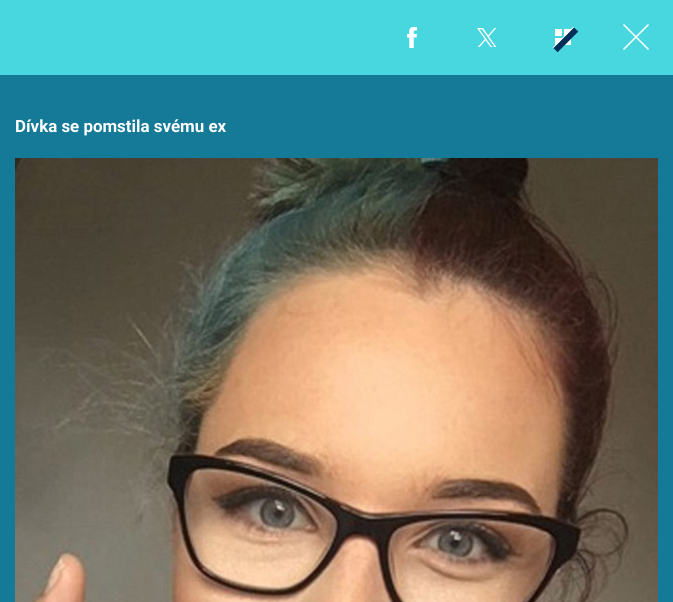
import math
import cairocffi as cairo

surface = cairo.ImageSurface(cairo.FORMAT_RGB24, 673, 602)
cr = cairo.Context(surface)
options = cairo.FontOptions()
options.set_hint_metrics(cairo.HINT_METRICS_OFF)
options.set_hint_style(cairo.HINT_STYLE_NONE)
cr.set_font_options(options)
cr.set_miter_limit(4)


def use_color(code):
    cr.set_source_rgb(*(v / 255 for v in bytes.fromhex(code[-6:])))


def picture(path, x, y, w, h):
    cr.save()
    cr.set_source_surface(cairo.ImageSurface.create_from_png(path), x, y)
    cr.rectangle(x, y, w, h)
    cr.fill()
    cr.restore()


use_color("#157a98")
cr.paint()
use_color("#48d6df")
cr.rectangle(0, 0, 673, 75)
cr.fill()
picture("img1.png", 407, 27, 10, 21)
picture("img2.png", 477, 28, 19, 19)
picture("img3.png", 552, 26, 27, 27)
cr.new_path()
cr.move_to(623.5, 24.5)
cr.line_to(648.5, 49.5)
cr.move_to(648.5, 24.5)
cr.line_to(623.5, 49.5)
use_color("#ffffff")
cr.set_line_width(1.5)
cr.stroke()
cr.select_font_face("Roboto", cairo.FONT_SLANT_NORMAL, cairo.FONT_WEIGHT_BOLD)
cr.set_font_size(16.9)
cr.move_to(15, 132)
cr.show_text("Dívka se pomstila svému ex")
picture("img4.png", 15, 158, 643, 444)
surface.write_to_png("result.png")
